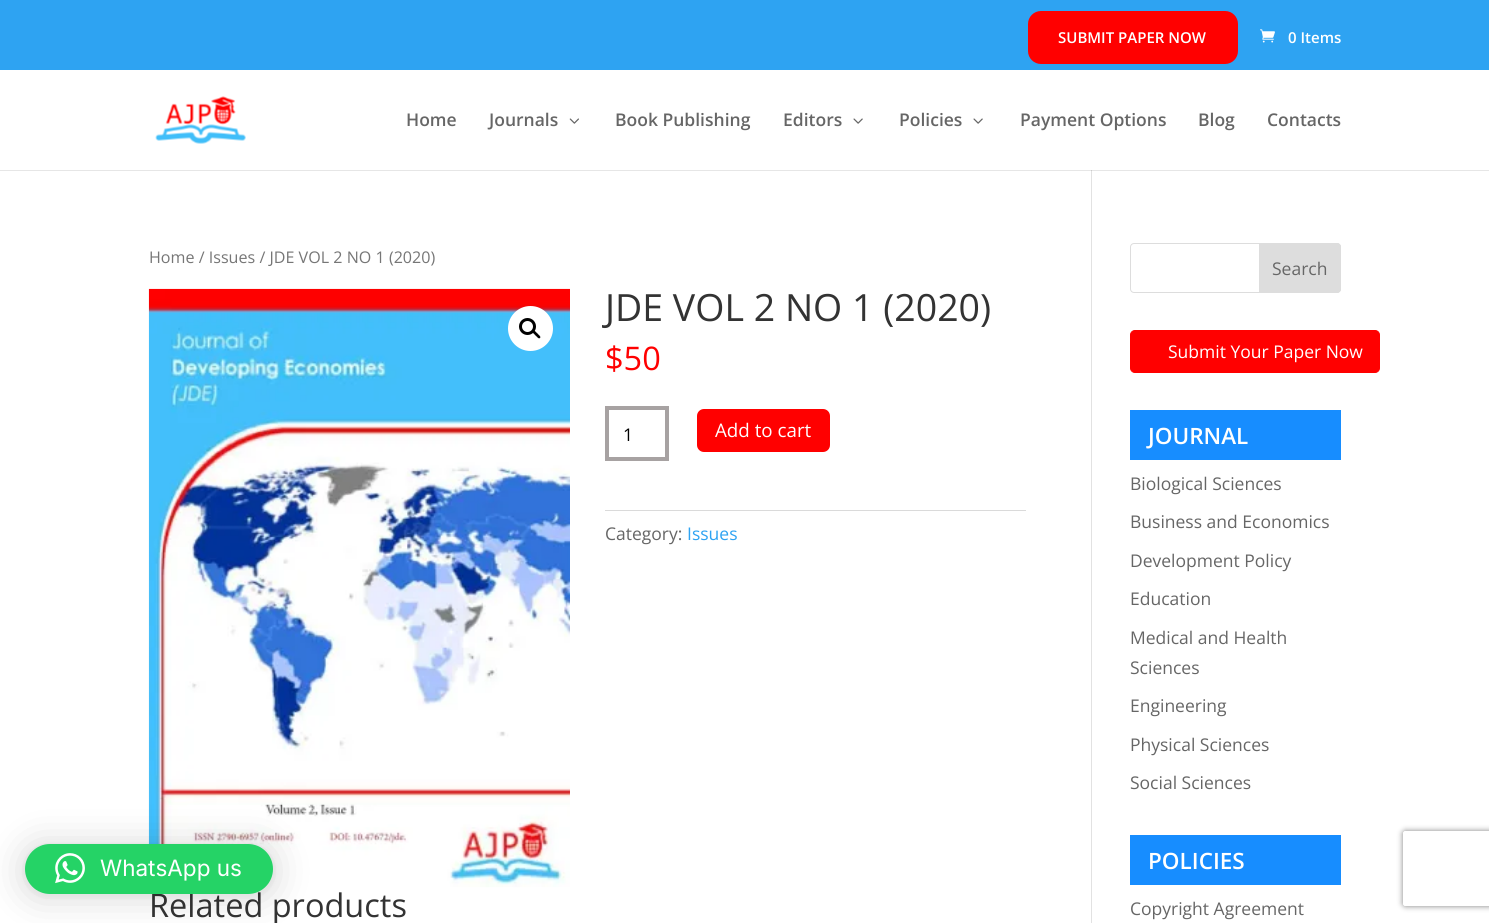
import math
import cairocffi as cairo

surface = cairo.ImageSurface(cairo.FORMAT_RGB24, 1489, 923)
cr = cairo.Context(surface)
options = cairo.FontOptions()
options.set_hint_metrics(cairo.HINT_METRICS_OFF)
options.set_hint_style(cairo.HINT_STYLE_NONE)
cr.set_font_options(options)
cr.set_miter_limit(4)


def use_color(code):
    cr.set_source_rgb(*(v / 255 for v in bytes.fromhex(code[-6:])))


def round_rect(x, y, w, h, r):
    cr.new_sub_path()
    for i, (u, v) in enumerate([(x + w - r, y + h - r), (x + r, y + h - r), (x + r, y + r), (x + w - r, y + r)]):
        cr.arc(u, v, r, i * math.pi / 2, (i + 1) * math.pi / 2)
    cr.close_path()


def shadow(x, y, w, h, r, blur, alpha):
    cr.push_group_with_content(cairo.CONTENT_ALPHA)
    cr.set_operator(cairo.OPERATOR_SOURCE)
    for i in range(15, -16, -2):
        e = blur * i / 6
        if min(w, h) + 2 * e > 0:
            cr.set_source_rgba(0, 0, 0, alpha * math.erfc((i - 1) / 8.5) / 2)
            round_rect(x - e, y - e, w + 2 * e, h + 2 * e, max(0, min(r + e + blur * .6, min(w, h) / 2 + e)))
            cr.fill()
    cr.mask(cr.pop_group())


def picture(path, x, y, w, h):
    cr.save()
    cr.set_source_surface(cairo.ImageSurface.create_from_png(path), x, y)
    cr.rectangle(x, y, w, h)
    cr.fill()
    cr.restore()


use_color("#ffffff")
cr.paint()
use_color("#e6e6e6")
cr.rectangle(0, 170, 1489, 1)
cr.fill()
use_color("#2ea3f2")
cr.rectangle(0, 0, 1489, 70)
cr.fill()
use_color("#ff0000")
round_rect(1028, 11, 210, 53, 13)
cr.fill()
cr.select_font_face("Open Sans SemiBold")
cr.set_font_size(15)
use_color("#ffffff")
cr.move_to(1058, 43)
cr.show_text("SUBMIT PAPER NOW")
picture("img1.png", 1260, 29, 15, 14)
cr.move_to(1288, 43)
cr.show_text("0 Items")
picture("img2.png", 155, 96, 91, 48)
cr.set_font_size(17.5)
use_color("#666666")
cr.move_to(406, 126)
cr.show_text("Home")
cr.move_to(489, 126)
cr.show_text("Journals")
picture("img3.png", 569, 118, 10, 6)
cr.move_to(615, 126)
cr.show_text("Book Publishing")
cr.move_to(783, 126)
cr.show_text("Editors")
picture("img4.png", 853, 118, 10, 6)
cr.move_to(899, 126)
cr.show_text("Policies")
picture("img4.png", 973, 118, 10, 6)
cr.move_to(1020, 126)
cr.show_text("Payment Options")
cr.move_to(1198, 126)
cr.show_text("Blog")
cr.move_to(1267, 126)
cr.show_text("Contacts")
use_color("#e2e2e2")
cr.rectangle(1091, 170, 1, 753)
cr.fill()
use_color("#cbcbcb")
cr.rectangle(1091, 170, 1, 1)
cr.fill()
cr.select_font_face("Open Sans")
cr.set_font_size(16.1)
use_color("#767676")
cr.move_to(149, 263)
cr.show_text("Home / Issues / JDE VOL 2 NO 1 (2020)")
picture("img5.png", 148, 288, 422, 600)
use_color("#ffffff")
cr.arc(530.5, 328.5, 22.5, 0, 2 * math.pi)
cr.fill()
cr.arc(527.5, 326.5, 7, 0, 2 * math.pi)
use_color("#000000")
cr.set_line_width(3)
cr.stroke()
cr.new_path()
cr.move_to(533, 331)
cr.curve_to(534.5, 329.5, 536.5, 333, 537.5, 333.5)
cr.curve_to(538, 334.5, 541.5, 336.5, 540, 338)
cr.curve_to(538.5, 339.5, 536.5, 336, 535.5, 335.5)
cr.curve_to(535, 334.5, 531.5, 332.5, 533, 331)
cr.close_path()
cr.fill()
cr.set_font_size(37.5)
use_color("#333333")
cr.move_to(605, 321)
cr.show_text("JDE VOL 2 NO 1 (2020)")
cr.set_font_size(32.5)
use_color("#ff0000")
cr.move_to(605, 370)
cr.show_text("$50")
cr.rectangle(607, 408, 60, 51)
use_color("#a7a2a2")
cr.set_line_width(4)
cr.stroke()
cr.set_font_size(17.5)
use_color("#000000")
cr.move_to(623, 441)
cr.show_text("1")
use_color("#ff0000")
round_rect(695.5, 407.5, 136, 46, 8.5)
cr.fill_preserve()
use_color("#ffffff")
cr.set_line_width(3)
cr.stroke()
cr.set_font_size(18.75)
cr.move_to(715, 437)
cr.show_text("Add to cart")
use_color("#dadada")
cr.rectangle(605, 510, 421, 1)
cr.fill()
cr.set_font_size(17.5)
use_color("#666666")
cr.move_to(605, 540)
cr.show_text("Category:")
use_color("#2ea3f2")
cr.move_to(687, 540)
cr.show_text("Issues")
cr.set_font_size(32.5)
use_color("#333333")
cr.move_to(149, 917)
cr.show_text("Related products")
round_rect(1130.5, 243.5, 210, 49, 3.5)
use_color("#dddddd")
cr.set_line_width(1)
cr.stroke()
cr.new_path()
cr.move_to(1259.5, 243.5)
cr.line_to(1337, 243.5)
cr.curve_to(1339, 243.5, 1340.5, 245, 1340.5, 247)
cr.line_to(1340.5, 289)
cr.curve_to(1340.5, 291, 1339, 292.5, 1337, 292.5)
cr.line_to(1259.5, 292.5)
cr.close_path()
cr.fill_preserve()
cr.stroke()
cr.set_font_size(17.5)
use_color("#666666")
cr.move_to(1272, 275)
cr.show_text("Search")
use_color("#ff0000")
round_rect(1130.5, 330.5, 249, 42, 4.5)
cr.fill_preserve()
cr.stroke()
use_color("#ffffff")
cr.move_to(1168, 358)
cr.show_text("Submit Your Paper Now")
use_color("#178dff")
cr.rectangle(1130, 410, 211, 50)
cr.fill()
cr.select_font_face("Open Sans SemiBold")
cr.set_font_size(22.5)
use_color("#ffffff")
cr.move_to(1148, 444)
cr.show_text("JOURNAL")
cr.select_font_face("Open Sans")
cr.set_font_size(17.5)
use_color("#666666")
cr.move_to(1130, 490)
cr.show_text("Biological Sciences")
cr.move_to(1130, 528)
cr.show_text("Business and Economics")
cr.move_to(1130, 567)
cr.show_text("Development Policy")
cr.move_to(1130, 605)
cr.show_text("Education")
cr.move_to(1130, 644)
cr.show_text("Medical and Health")
cr.move_to(1130, 674)
cr.show_text("Sciences")
cr.move_to(1130, 712)
cr.show_text("Engineering")
cr.move_to(1130, 751)
cr.show_text("Physical Sciences")
cr.move_to(1130, 789)
cr.show_text("Social Sciences")
use_color("#178dff")
cr.rectangle(1130, 835, 211, 50)
cr.fill()
cr.select_font_face("Open Sans SemiBold")
cr.set_font_size(22.5)
use_color("#ffffff")
cr.move_to(1148, 869)
cr.show_text("POLICIES")
cr.select_font_face("Open Sans")
cr.set_font_size(17.5)
use_color("#666666")
cr.move_to(1130, 915)
cr.show_text("Copyright Agreement")
cr.save()
cr.set_fill_rule(cairo.FILL_RULE_EVEN_ODD)
cr.new_path()
cr.move_to(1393, 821)
cr.line_to(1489, 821)
cr.line_to(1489, 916)
cr.line_to(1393, 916)
cr.close_path()
cr.move_to(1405.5, 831)
cr.line_to(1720.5, 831)
cr.curve_to(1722, 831, 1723, 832, 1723, 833.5)
cr.line_to(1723, 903.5)
cr.curve_to(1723, 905, 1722, 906, 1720.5, 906)
cr.line_to(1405.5, 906)
cr.curve_to(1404, 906, 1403, 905, 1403, 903.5)
cr.line_to(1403, 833.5)
cr.curve_to(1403, 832, 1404, 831, 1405.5, 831)
cr.close_path()
cr.clip()
use_color("#808080")
shadow(1403, 831, 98, 75, 2.5, 3, 1)
cr.restore()
use_color("#000000")
shadow(25, 846, 248, 50, 25, 20, 0.16)
shadow(25, 845, 248, 50, 25, 4, 0.06)
use_color("#25d366")
round_rect(25, 844, 248, 50, 25)
cr.fill()
picture("img6.png", 55, 853, 30, 31)
cr.select_font_face("Inter")
cr.set_font_size(22.5)
use_color("#ffffff")
cr.move_to(100, 876)
cr.show_text("WhatsApp us")
surface.write_to_png("result.png")
